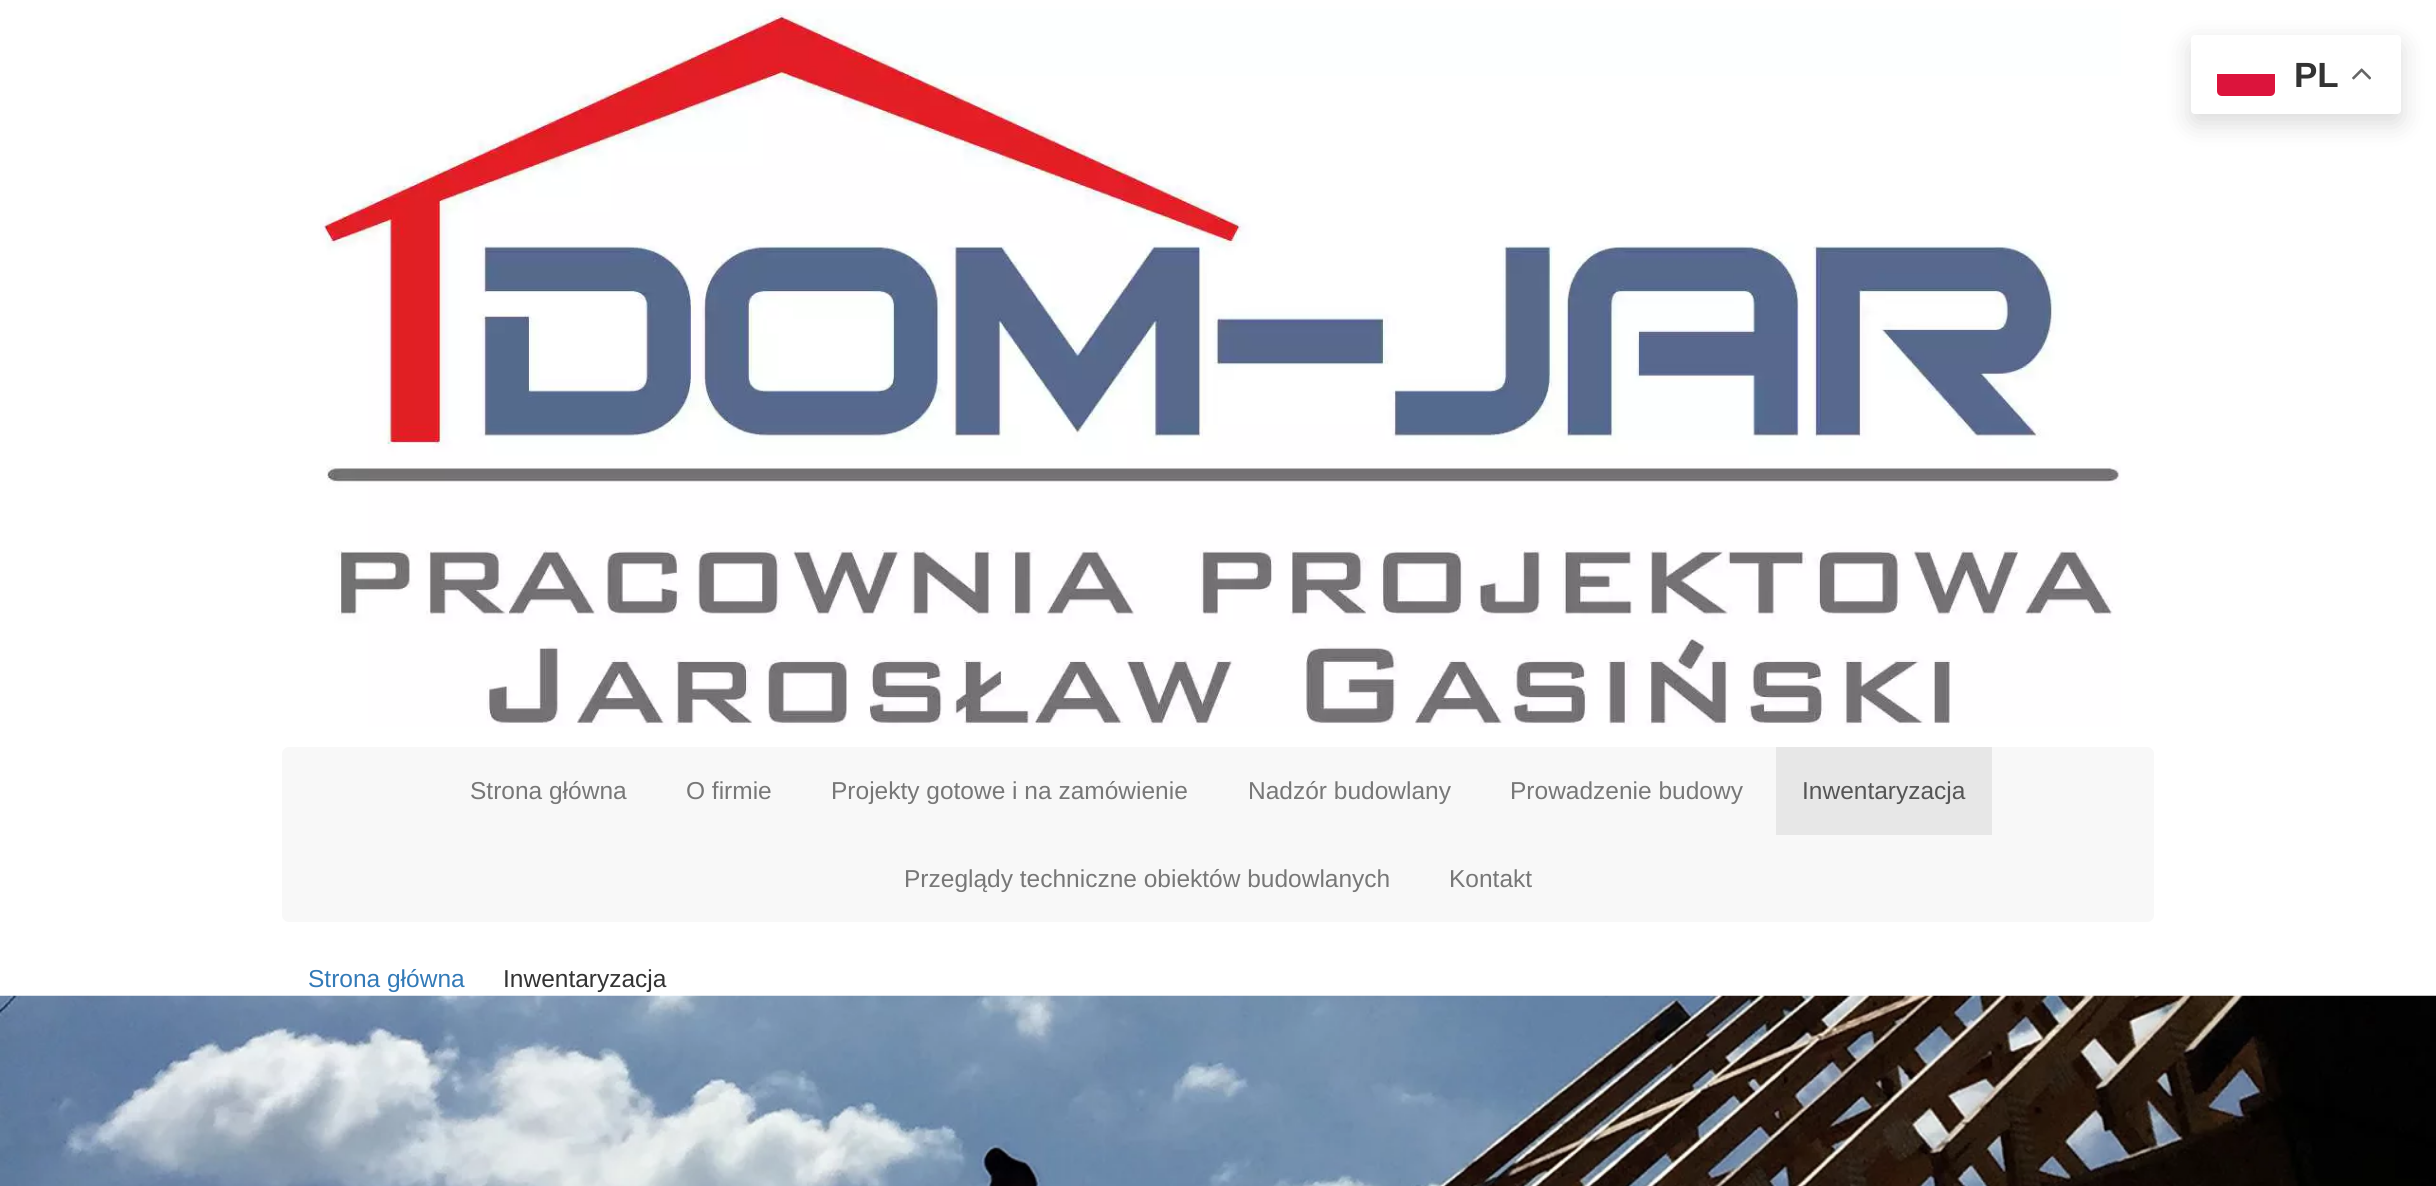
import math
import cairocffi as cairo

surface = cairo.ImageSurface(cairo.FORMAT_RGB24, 2436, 1186)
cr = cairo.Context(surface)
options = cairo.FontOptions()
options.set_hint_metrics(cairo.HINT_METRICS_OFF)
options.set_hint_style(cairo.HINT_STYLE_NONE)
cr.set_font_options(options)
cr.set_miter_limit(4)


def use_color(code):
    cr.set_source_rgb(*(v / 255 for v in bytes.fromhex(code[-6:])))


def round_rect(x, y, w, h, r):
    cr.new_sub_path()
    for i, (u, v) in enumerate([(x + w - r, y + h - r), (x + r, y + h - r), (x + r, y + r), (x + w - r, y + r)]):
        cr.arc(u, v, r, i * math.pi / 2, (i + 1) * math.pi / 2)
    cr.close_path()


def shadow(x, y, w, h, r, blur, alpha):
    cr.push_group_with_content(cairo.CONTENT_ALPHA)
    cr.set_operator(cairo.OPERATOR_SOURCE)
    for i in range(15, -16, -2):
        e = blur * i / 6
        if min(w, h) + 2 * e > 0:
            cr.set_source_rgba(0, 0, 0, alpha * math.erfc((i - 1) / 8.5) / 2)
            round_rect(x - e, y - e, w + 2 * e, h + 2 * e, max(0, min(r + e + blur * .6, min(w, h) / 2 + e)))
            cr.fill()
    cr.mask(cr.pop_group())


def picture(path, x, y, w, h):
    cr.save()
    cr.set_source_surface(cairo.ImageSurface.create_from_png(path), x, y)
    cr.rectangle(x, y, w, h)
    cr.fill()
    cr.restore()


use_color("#ffffff")
cr.paint()
use_color("#000000")
shadow(2191, 44, 210, 79, 4, 13, 0.15)
use_color("#ffffff")
round_rect(2191, 35, 210, 79, 4)
cr.fill()
use_color("#dc143c")
cr.new_path()
cr.move_to(2217, 74)
cr.line_to(2275, 74)
cr.line_to(2275, 91)
cr.curve_to(2275, 94, 2273, 96, 2270, 96)
cr.line_to(2222, 96)
cr.curve_to(2219, 96, 2217, 94, 2217, 91)
cr.close_path()
cr.fill()
cr.select_font_face("Liberation Sans", cairo.FONT_SLANT_NORMAL, cairo.FONT_WEIGHT_BOLD)
cr.set_font_size(35)
use_color("#333333")
cr.move_to(2294, 87)
cr.show_text("PL")
picture("img1.png", 2352, 68, 19, 12)
picture("img2.png", 320, 9, 1801, 718)
use_color("#f8f8f8")
round_rect(282, 747, 1872, 175, 7)
cr.fill()
cr.select_font_face("Liberation Sans")
cr.set_font_size(24.5)
use_color("#777777")
cr.move_to(470, 799)
cr.show_text("Strona główna")
cr.move_to(686, 799)
cr.show_text("O firmie")
cr.move_to(831, 799)
cr.show_text("Projekty gotowe i na zamówienie")
cr.move_to(1248, 799)
cr.show_text("Nadzór budowlany")
cr.move_to(1510, 799)
cr.show_text("Prowadzenie budowy")
use_color("#e7e7e7")
cr.rectangle(1776, 747, 216, 88)
cr.fill()
use_color("#555555")
cr.move_to(1802, 799)
cr.show_text("Inwentaryzacja")
use_color("#777777")
cr.move_to(904, 887)
cr.show_text("Przeglądy techniczne obiektów budowlanych")
cr.move_to(1449, 887)
cr.show_text("Kontakt")
use_color("#337ab7")
cr.move_to(308, 987)
cr.show_text("Strona główna")
use_color("#333333")
cr.move_to(503, 987)
cr.show_text("Inwentaryzacja")
picture("img3.png", 0, 995, 2436, 191)
surface.write_to_png("result.png")
